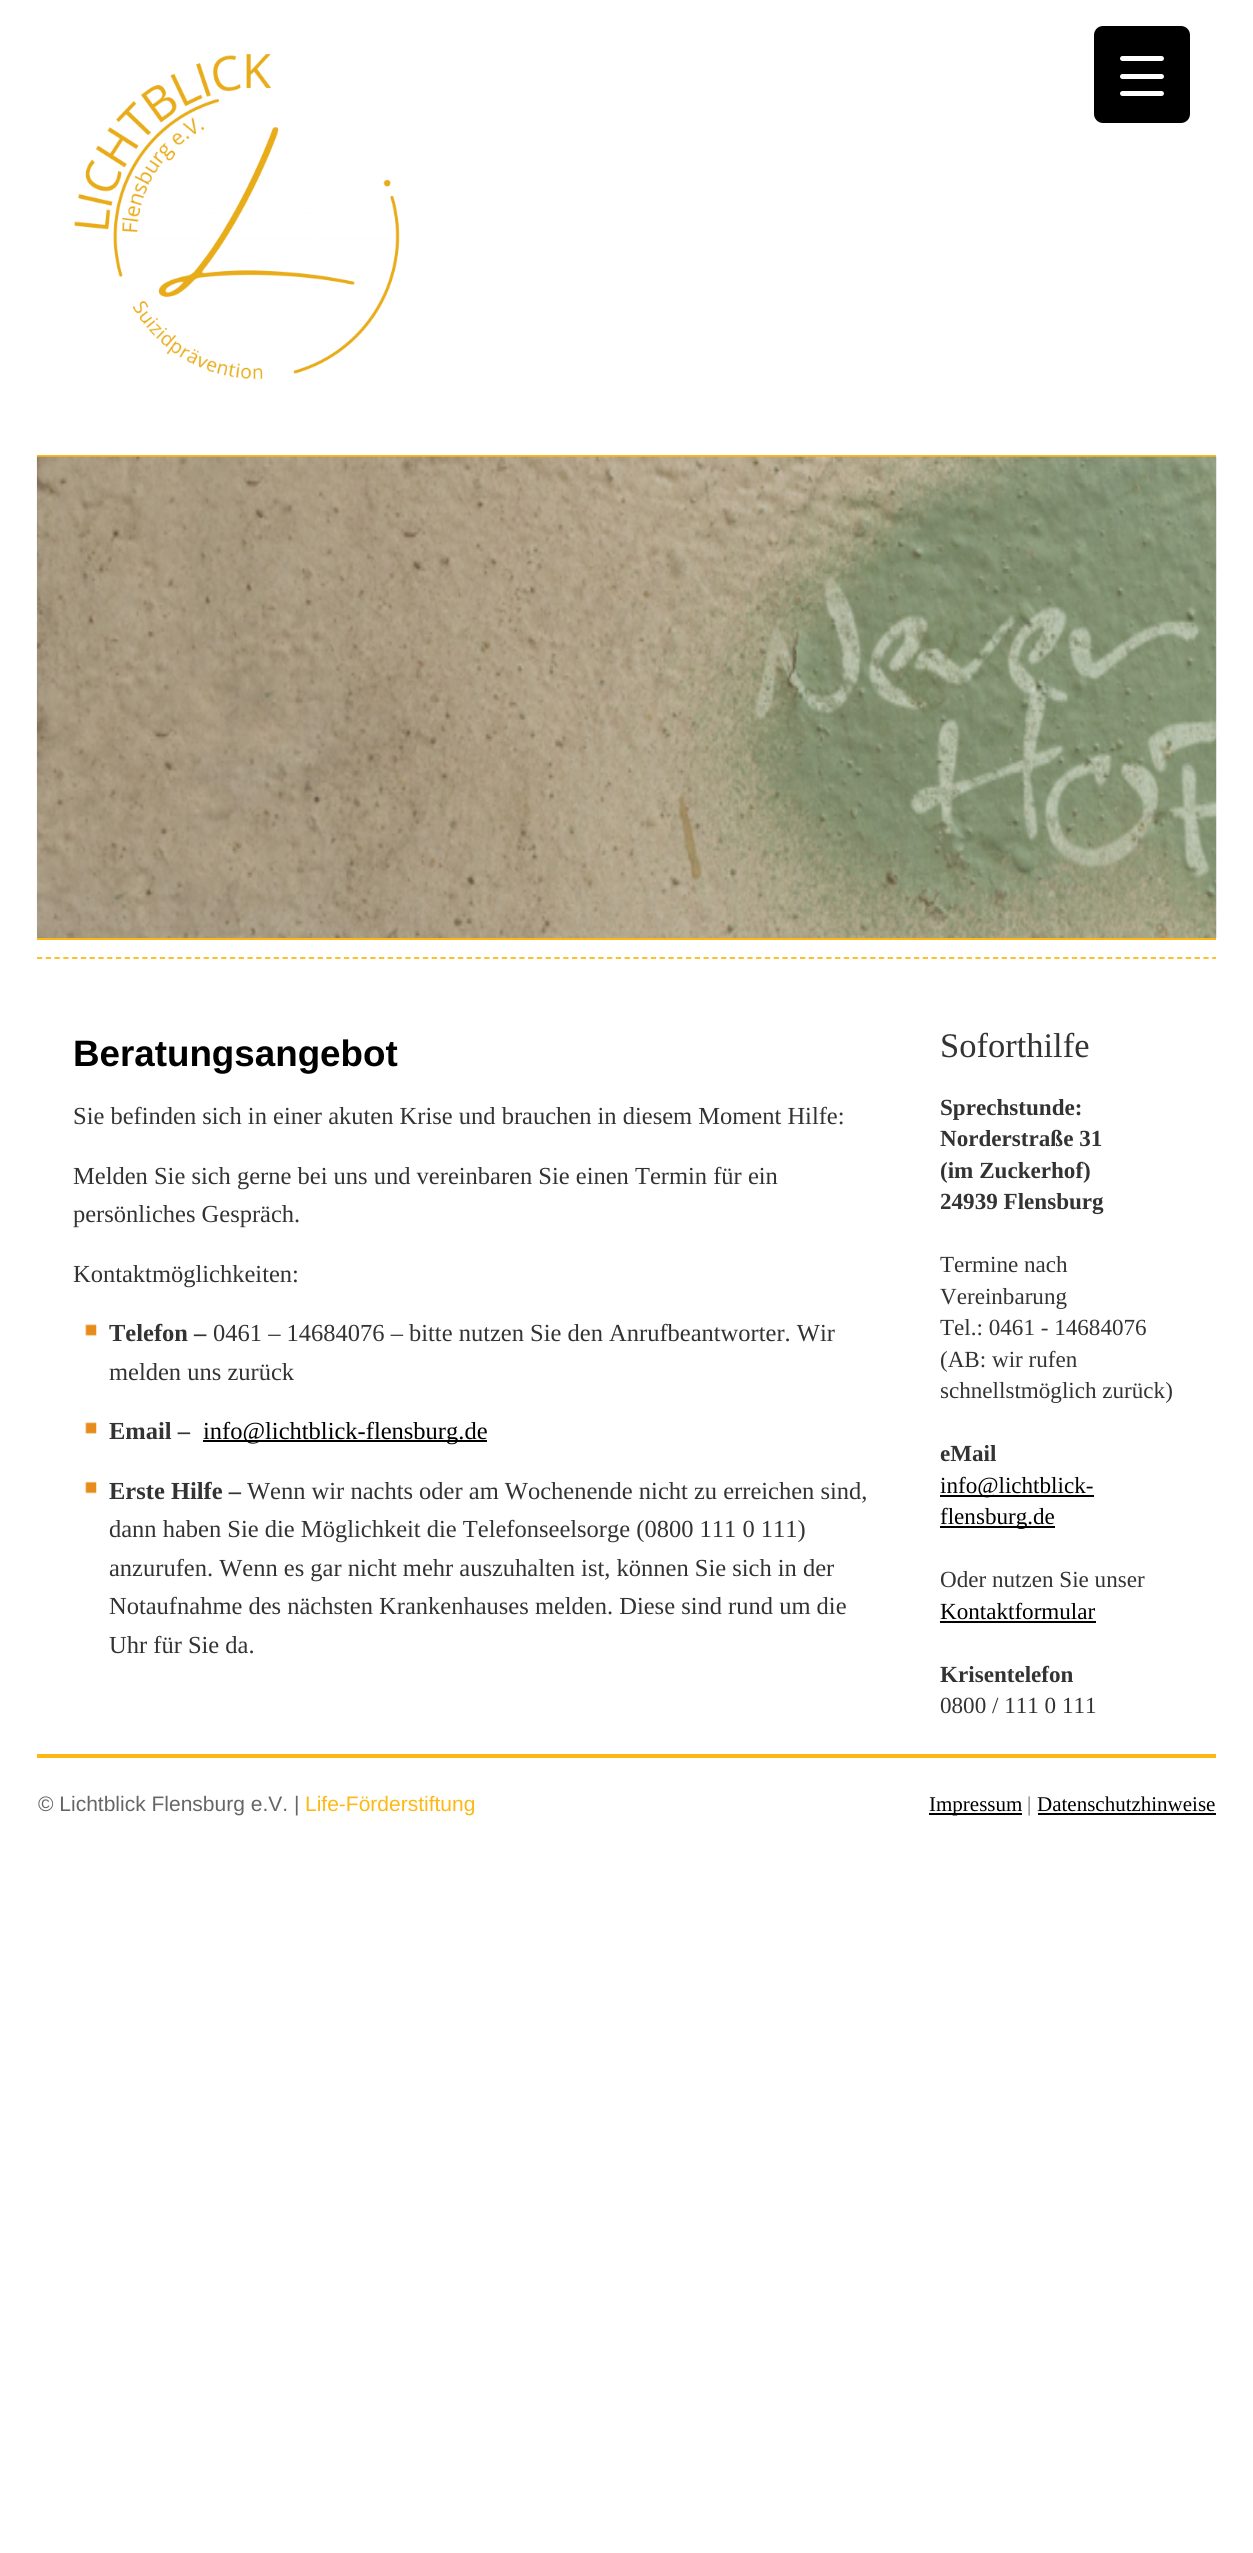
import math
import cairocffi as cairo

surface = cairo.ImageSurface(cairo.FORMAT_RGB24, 1253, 2553)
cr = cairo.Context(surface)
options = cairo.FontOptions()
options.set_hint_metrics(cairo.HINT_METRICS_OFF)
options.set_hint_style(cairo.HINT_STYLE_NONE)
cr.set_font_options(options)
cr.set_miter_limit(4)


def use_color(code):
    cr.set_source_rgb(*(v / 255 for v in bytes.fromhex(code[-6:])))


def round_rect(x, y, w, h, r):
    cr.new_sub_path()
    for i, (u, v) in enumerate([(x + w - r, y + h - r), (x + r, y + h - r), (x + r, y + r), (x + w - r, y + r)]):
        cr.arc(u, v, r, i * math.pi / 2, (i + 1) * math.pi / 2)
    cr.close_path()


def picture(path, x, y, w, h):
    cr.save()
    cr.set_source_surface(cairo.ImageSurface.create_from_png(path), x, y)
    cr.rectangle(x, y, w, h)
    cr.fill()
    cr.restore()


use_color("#ffffff")
cr.paint()
use_color("#000000")
round_rect(1094, 26, 96, 97, 9)
cr.fill()
use_color("#ffffff")
round_rect(1120, 74, 44, 5, 2.5)
cr.fill()
round_rect(1120, 56, 44, 5, 2.5)
cr.fill()
round_rect(1120, 91, 44, 5, 2.5)
cr.fill()
picture("img1.png", 74, 54, 326, 326)
use_color("#fdb813")
cr.rectangle(37, 455, 1179, 2)
cr.fill()
cr.rectangle(37, 938, 1179, 2)
cr.fill()
picture("img2.png", 36, 456, 1181, 482)
cr.new_path()
cr.move_to(37, 958)
cr.line_to(1216, 958)
cr.set_line_width(1.8)
cr.set_dash([5.25, 3.52])
cr.stroke()
cr.select_font_face("Liberation Sans", cairo.FONT_SLANT_NORMAL, cairo.FONT_WEIGHT_BOLD)
cr.set_font_size(36.75)
use_color("#000000")
cr.move_to(73, 1066)
cr.show_text("Beratungsangebot")
cr.select_font_face("Liberation Serif")
cr.set_font_size(24.5)
use_color("#333333")
cr.move_to(73, 1124)
cr.show_text("Sie befinden sich in einer akuten Krise und brauchen in diesem Moment Hilfe:")
cr.move_to(73, 1184)
cr.show_text("Melden Sie sich gerne bei uns und vereinbaren Sie einen Termin für ein")
cr.move_to(73, 1222)
cr.show_text("persönliches Gespräch.")
cr.move_to(73, 1282)
cr.show_text("Kontaktmöglichkeiten:")
picture("img3.png", 85, 1324, 12, 12)
cr.select_font_face("Liberation Serif", cairo.FONT_SLANT_NORMAL, cairo.FONT_WEIGHT_BOLD)
cr.move_to(109, 1341)
cr.show_text("Telefon –")
cr.select_font_face("Liberation Serif")
cr.move_to(213, 1341)
cr.show_text("0461 – 14684076 – bitte nutzen Sie den Anrufbeantworter. Wir")
cr.move_to(109, 1380)
cr.show_text("melden uns zurück")
picture("img3.png", 85, 1422, 12, 12)
cr.select_font_face("Liberation Serif", cairo.FONT_SLANT_NORMAL, cairo.FONT_WEIGHT_BOLD)
cr.move_to(109, 1439)
cr.show_text("Email –")
use_color("#000000")
cr.rectangle(203, 1440, 284, 2)
cr.fill()
cr.select_font_face("Liberation Serif")
cr.move_to(203, 1439)
cr.show_text("info@lichtblick-flensburg.de")
picture("img4.png", 85, 1481, 12, 13)
cr.select_font_face("Liberation Serif", cairo.FONT_SLANT_NORMAL, cairo.FONT_WEIGHT_BOLD)
use_color("#333333")
cr.move_to(109, 1499)
cr.show_text("Erste Hilfe –")
cr.select_font_face("Liberation Serif")
cr.move_to(247, 1499)
cr.show_text("Wenn wir nachts oder am Wochenende nicht zu erreichen sind,")
cr.move_to(109, 1537)
cr.show_text("dann haben Sie die Möglichkeit die Telefonseelsorge (0800 111 0 111)")
cr.move_to(109, 1576)
cr.show_text("anzurufen. Wenn es gar nicht mehr auszuhalten ist, können Sie sich in der")
cr.move_to(109, 1614)
cr.show_text("Notaufnahme des nächsten Krankenhauses melden. Diese sind rund um die")
cr.move_to(109, 1653)
cr.show_text("Uhr für Sie da.")
cr.set_font_size(34.5)
cr.move_to(940, 1057)
cr.show_text("Soforthilfe")
cr.select_font_face("Liberation Serif", cairo.FONT_SLANT_NORMAL, cairo.FONT_WEIGHT_BOLD)
cr.set_font_size(23.1)
cr.move_to(940, 1115)
cr.show_text("Sprechstunde:")
cr.move_to(940, 1146)
cr.show_text("Norderstraße 31")
cr.move_to(940, 1178)
cr.show_text("(im Zuckerhof)")
cr.move_to(940, 1209)
cr.show_text("24939 Flensburg")
cr.select_font_face("Liberation Serif")
cr.move_to(940, 1272)
cr.show_text("Termine nach")
cr.move_to(940, 1304)
cr.show_text("Vereinbarung")
cr.move_to(940, 1335)
cr.show_text("Tel.: 0461 - 14684076")
cr.move_to(940, 1367)
cr.show_text("(AB: wir rufen")
cr.move_to(940, 1398)
cr.show_text("schnellstmöglich zurück)")
cr.select_font_face("Liberation Serif", cairo.FONT_SLANT_NORMAL, cairo.FONT_WEIGHT_BOLD)
cr.move_to(940, 1461)
cr.show_text("eMail")
use_color("#000000")
cr.rectangle(940, 1495, 154, 2)
cr.fill()
cr.select_font_face("Liberation Serif")
cr.move_to(940, 1493)
cr.show_text("info@lichtblick-")
cr.rectangle(940, 1526, 115, 2)
cr.fill()
cr.move_to(940, 1524)
cr.show_text("flensburg.de")
use_color("#333333")
cr.move_to(940, 1587)
cr.show_text("Oder nutzen Sie unser")
use_color("#000000")
cr.move_to(940, 1619)
cr.show_text("Kontaktformular")
cr.rectangle(940, 1621, 156, 2)
cr.fill()
cr.select_font_face("Liberation Serif", cairo.FONT_SLANT_NORMAL, cairo.FONT_WEIGHT_BOLD)
use_color("#333333")
cr.move_to(940, 1682)
cr.show_text("Krisentelefon")
cr.select_font_face("Liberation Serif")
cr.move_to(940, 1713)
cr.show_text("0800 / 111 0 111")
use_color("#fdb813")
cr.rectangle(37, 1754, 1179, 4)
cr.fill()
cr.select_font_face("Liberation Sans")
cr.set_font_size(21)
use_color("#666666")
cr.move_to(38, 1811)
cr.show_text("© Lichtblick Flensburg e.V. |")
use_color("#fdb813")
cr.move_to(305, 1811)
cr.show_text("Life-Förderstiftung")
use_color("#000000")
cr.rectangle(929, 1813, 93, 2)
cr.fill()
cr.select_font_face("Liberation Serif")
cr.move_to(929, 1811)
cr.show_text("Impressum")
use_color("#666666")
cr.move_to(1027, 1811)
cr.show_text("|")
use_color("#000000")
cr.move_to(1037, 1811)
cr.show_text("Datenschutzhinweise")
cr.rectangle(1038, 1813, 178, 2)
cr.fill()
surface.write_to_png("result.png")
